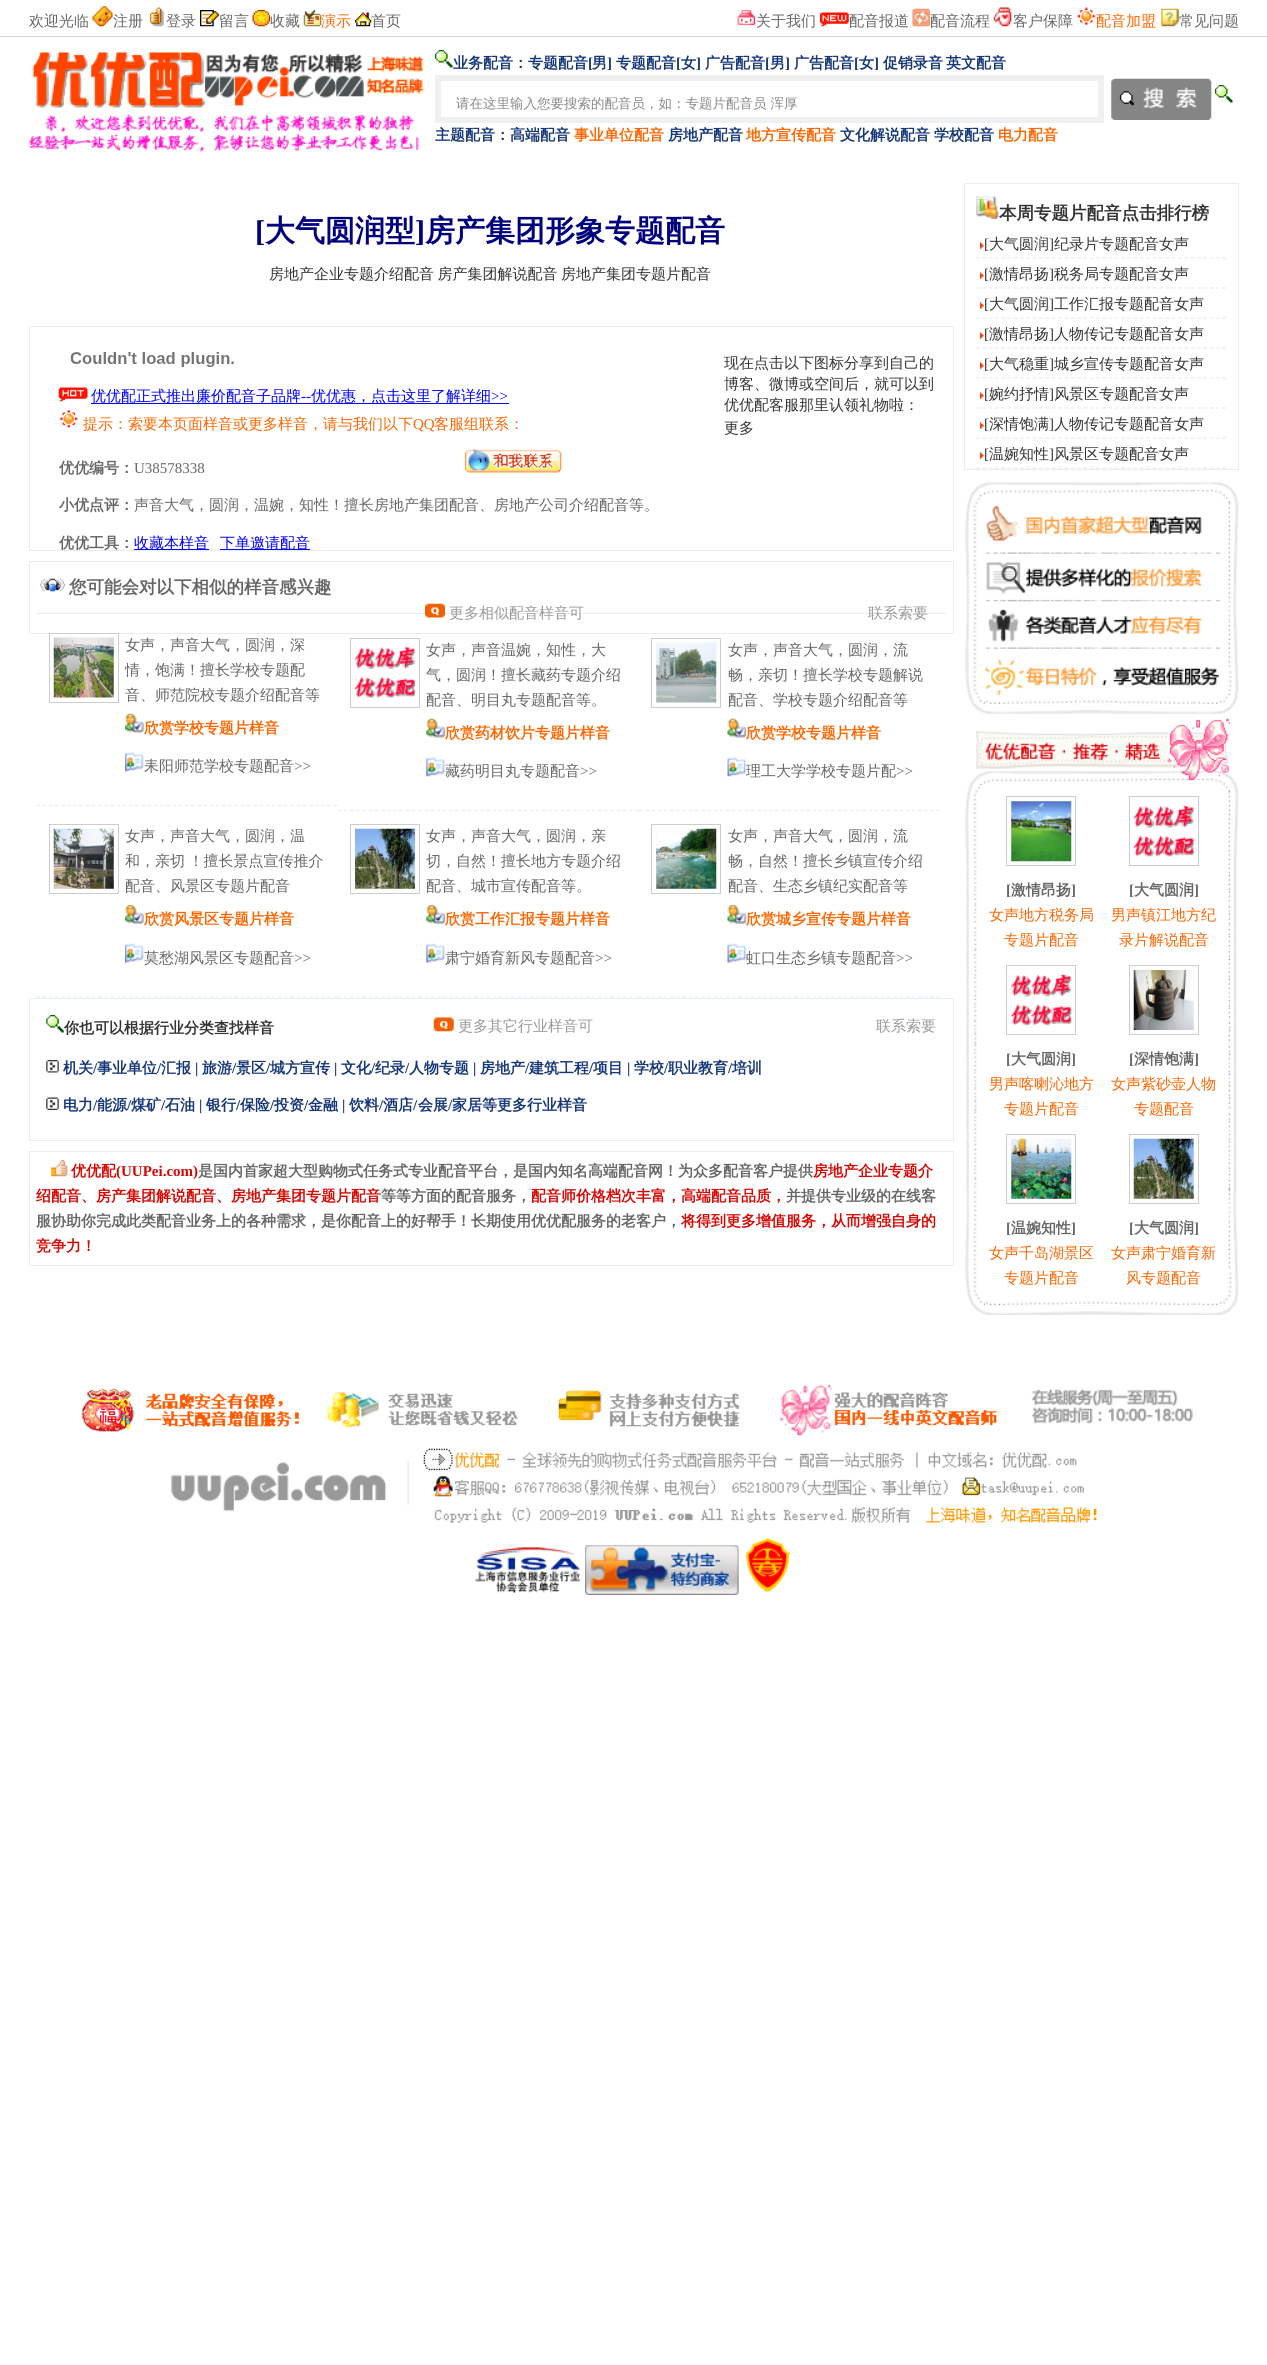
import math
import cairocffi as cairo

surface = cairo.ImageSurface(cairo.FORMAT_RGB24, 1267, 2365)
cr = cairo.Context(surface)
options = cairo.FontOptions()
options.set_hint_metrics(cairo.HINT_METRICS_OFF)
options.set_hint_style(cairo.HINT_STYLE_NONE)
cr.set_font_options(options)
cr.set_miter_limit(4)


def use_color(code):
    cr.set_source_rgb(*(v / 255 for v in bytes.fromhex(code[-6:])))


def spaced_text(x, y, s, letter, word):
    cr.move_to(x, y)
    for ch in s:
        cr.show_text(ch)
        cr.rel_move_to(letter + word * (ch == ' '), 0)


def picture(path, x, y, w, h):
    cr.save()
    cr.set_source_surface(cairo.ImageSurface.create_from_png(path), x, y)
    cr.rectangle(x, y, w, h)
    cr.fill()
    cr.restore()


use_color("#ffffff")
cr.paint()
use_color("#d2d2d2")
cr.rectangle(0, 36, 1267, 1)
cr.fill()
cr.select_font_face("WenQuanYi Zen Hei Medium")
cr.set_font_size(15)
use_color("#666666")
cr.move_to(29, 26)
cr.show_text("欢迎光临")
picture("img1.png", 92, 6, 21, 21)
cr.move_to(113, 26)
cr.show_text("注册")
picture("img2.png", 149, 7, 15, 20)
cr.move_to(166, 26)
cr.show_text("登录")
picture("img3.png", 200, 10, 19, 17)
cr.move_to(219, 26)
cr.show_text("留言")
picture("img4.png", 252, 10, 18, 17)
cr.move_to(270, 26)
cr.show_text("收藏")
picture("img5.png", 303, 9, 19, 18)
use_color("#ff6600")
cr.move_to(321, 26)
cr.show_text("演示")
picture("img6.png", 355, 12, 17, 15)
use_color("#666666")
cr.move_to(371, 26)
cr.show_text("首页")
picture("img7.png", 737, 9, 19, 17)
cr.move_to(756, 26)
cr.show_text("关于我们")
picture("img8.png", 820, 12, 29, 15)
cr.move_to(849, 26)
cr.show_text("配音报道")
picture("img9.png", 912, 8, 18, 19)
cr.move_to(930, 26)
cr.show_text("配音流程")
picture("img10.png", 993, 7, 19, 20)
cr.move_to(1013, 26)
cr.show_text("客户保障")
picture("img11.png", 1077, 7, 19, 19)
use_color("#ff6600")
cr.move_to(1096, 26)
cr.show_text("配音加盟")
picture("img12.png", 1161, 8, 18, 19)
use_color("#666666")
cr.move_to(1179, 26)
cr.show_text("常见问题")
picture("img13.png", 28, 52, 397, 100)
picture("img14.png", 435, 50, 18, 18)
cr.select_font_face("WenQuanYi Zen Hei", cairo.FONT_SLANT_NORMAL, cairo.FONT_WEIGHT_BOLD)
use_color("#153679")
cr.move_to(453, 68)
cr.show_text("业务配音：专题配音")
cr.select_font_face("Liberation Serif", cairo.FONT_SLANT_NORMAL, cairo.FONT_WEIGHT_BOLD)
cr.move_to(588, 68)
cr.show_text("[")
cr.select_font_face("WenQuanYi Zen Hei", cairo.FONT_SLANT_NORMAL, cairo.FONT_WEIGHT_BOLD)
cr.move_to(592, 68)
cr.show_text("男")
cr.select_font_face("Liberation Serif", cairo.FONT_SLANT_NORMAL, cairo.FONT_WEIGHT_BOLD)
cr.move_to(607, 68)
cr.show_text("]")
cr.select_font_face("WenQuanYi Zen Hei", cairo.FONT_SLANT_NORMAL, cairo.FONT_WEIGHT_BOLD)
cr.move_to(616, 68)
cr.show_text("专题配音")
cr.select_font_face("Liberation Serif", cairo.FONT_SLANT_NORMAL, cairo.FONT_WEIGHT_BOLD)
cr.move_to(676, 68)
cr.show_text("[")
cr.select_font_face("WenQuanYi Zen Hei", cairo.FONT_SLANT_NORMAL, cairo.FONT_WEIGHT_BOLD)
cr.move_to(681, 68)
cr.show_text("女")
cr.select_font_face("Liberation Serif", cairo.FONT_SLANT_NORMAL, cairo.FONT_WEIGHT_BOLD)
cr.move_to(696, 68)
cr.show_text("]")
cr.select_font_face("WenQuanYi Zen Hei", cairo.FONT_SLANT_NORMAL, cairo.FONT_WEIGHT_BOLD)
cr.move_to(705, 68)
cr.show_text("广告配音")
cr.select_font_face("Liberation Serif", cairo.FONT_SLANT_NORMAL, cairo.FONT_WEIGHT_BOLD)
cr.move_to(765, 68)
cr.show_text("[")
cr.select_font_face("WenQuanYi Zen Hei", cairo.FONT_SLANT_NORMAL, cairo.FONT_WEIGHT_BOLD)
cr.move_to(770, 68)
cr.show_text("男")
cr.select_font_face("Liberation Serif", cairo.FONT_SLANT_NORMAL, cairo.FONT_WEIGHT_BOLD)
cr.move_to(785, 68)
cr.show_text("]")
cr.select_font_face("WenQuanYi Zen Hei", cairo.FONT_SLANT_NORMAL, cairo.FONT_WEIGHT_BOLD)
cr.move_to(794, 68)
cr.show_text("广告配音")
cr.select_font_face("Liberation Serif", cairo.FONT_SLANT_NORMAL, cairo.FONT_WEIGHT_BOLD)
cr.move_to(854, 68)
cr.show_text("[")
cr.select_font_face("WenQuanYi Zen Hei", cairo.FONT_SLANT_NORMAL, cairo.FONT_WEIGHT_BOLD)
cr.move_to(859, 68)
cr.show_text("女")
cr.select_font_face("Liberation Serif", cairo.FONT_SLANT_NORMAL, cairo.FONT_WEIGHT_BOLD)
cr.move_to(874, 68)
cr.show_text("]")
cr.select_font_face("WenQuanYi Zen Hei", cairo.FONT_SLANT_NORMAL, cairo.FONT_WEIGHT_BOLD)
cr.move_to(883, 68)
cr.show_text("促销录音")
cr.move_to(946, 68)
cr.show_text("英文配音")
cr.rectangle(438, 78, 663, 42)
use_color("#eef0f2")
cr.set_line_width(6)
cr.stroke()
cr.select_font_face("WenQuanYi Zen Hei Medium")
cr.set_font_size(13.5)
use_color("#888888")
cr.move_to(456, 108)
cr.show_text("请在这里输入您要搜索的配音员，如：专题片配音员 浑厚")
picture("img15.png", 1111, 78, 101, 42)
picture("img16.png", 1215, 85, 18, 18)
cr.select_font_face("WenQuanYi Zen Hei", cairo.FONT_SLANT_NORMAL, cairo.FONT_WEIGHT_BOLD)
cr.set_font_size(15)
use_color("#153679")
cr.move_to(435, 140)
cr.show_text("主题配音：高端配音")
use_color("#ff6600")
cr.move_to(574, 140)
cr.show_text("事业单位配音")
use_color("#153679")
cr.move_to(668, 140)
cr.show_text("房地产配音")
use_color("#ff6600")
cr.move_to(746, 140)
cr.show_text("地方宣传配音")
use_color("#153679")
cr.move_to(840, 140)
cr.show_text("文化解说配音")
cr.move_to(934, 140)
cr.show_text("学校配音")
use_color("#ff6600")
cr.move_to(998, 140)
cr.show_text("电力配音")
cr.select_font_face("Liberation Serif", cairo.FONT_SLANT_NORMAL, cairo.FONT_WEIGHT_BOLD)
cr.set_font_size(30)
use_color("#00007f")
cr.move_to(255, 241)
cr.show_text("[")
cr.select_font_face("WenQuanYi Zen Hei", cairo.FONT_SLANT_NORMAL, cairo.FONT_WEIGHT_BOLD)
cr.move_to(265, 241)
cr.show_text("大气圆润型")
cr.select_font_face("Liberation Serif", cairo.FONT_SLANT_NORMAL, cairo.FONT_WEIGHT_BOLD)
cr.move_to(415, 241)
cr.show_text("]")
cr.select_font_face("WenQuanYi Zen Hei", cairo.FONT_SLANT_NORMAL, cairo.FONT_WEIGHT_BOLD)
cr.move_to(425, 241)
cr.show_text("房产集团形象专题配音")
cr.select_font_face("WenQuanYi Zen Hei Medium")
cr.set_font_size(15)
use_color("#333333")
spaced_text(269, 279, "房地产企业专题介绍配音 房产集团解说配音 房地产集团专题片配音", 0, -1)
cr.rectangle(29.5, 326.5, 924, 224)
use_color("#e7eef2")
cr.set_line_width(1)
cr.stroke()
picture("img17.png", 70, 352, 164, 15)
picture("img18.png", 58, 387, 30, 15)
use_color("#0000ff")
cr.rectangle(91, 403, 418, 1)
cr.fill()
cr.move_to(91, 401)
cr.show_text("优优配正式推出廉价配音子品牌")
cr.select_font_face("Liberation Serif")
cr.move_to(301, 401)
cr.show_text("--")
cr.select_font_face("WenQuanYi Zen Hei Medium")
cr.move_to(311, 401)
cr.show_text("优优惠，点击这里了解详细")
cr.select_font_face("Liberation Serif")
cr.move_to(491, 401)
cr.show_text(">>")
picture("img19.png", 59, 409, 19, 19)
cr.select_font_face("WenQuanYi Zen Hei Medium")
use_color("#ff6600")
cr.move_to(83, 429)
cr.show_text("提示：索要本页面样音或更多样音，请与我们以下")
cr.select_font_face("Liberation Serif")
cr.move_to(413, 429)
cr.show_text("QQ")
cr.select_font_face("WenQuanYi Zen Hei Medium")
cr.move_to(434, 429)
cr.show_text("客服组联系：")
cr.select_font_face("WenQuanYi Zen Hei", cairo.FONT_SLANT_NORMAL, cairo.FONT_WEIGHT_BOLD)
use_color("#666666")
cr.move_to(59, 473)
cr.show_text("优优编号：")
cr.select_font_face("Liberation Serif")
cr.move_to(134, 473)
cr.show_text("U38578338")
picture("img20.png", 465, 448, 97, 25)
cr.select_font_face("WenQuanYi Zen Hei", cairo.FONT_SLANT_NORMAL, cairo.FONT_WEIGHT_BOLD)
cr.move_to(59, 510)
cr.show_text("小优点评：")
cr.select_font_face("WenQuanYi Zen Hei Medium")
cr.move_to(134, 510)
cr.show_text("声音大气，圆润，温婉，知性！擅长房地产集团配音、房地产公司介绍配音等。")
cr.select_font_face("WenQuanYi Zen Hei", cairo.FONT_SLANT_NORMAL, cairo.FONT_WEIGHT_BOLD)
cr.move_to(59, 548)
cr.show_text("优优工具：")
use_color("#0000ff")
cr.rectangle(134, 549, 75, 1)
cr.fill()
cr.select_font_face("WenQuanYi Zen Hei Medium")
cr.move_to(134, 548)
cr.show_text("收藏本样音")
cr.rectangle(220, 549, 90, 1)
cr.fill()
cr.move_to(220, 548)
cr.show_text("下单邀请配音")
use_color("#333333")
cr.move_to(724, 368)
cr.show_text("现在点击以下图标分享到自己的")
cr.move_to(724, 389)
cr.show_text("博客、微博或空间后，就可以到")
cr.move_to(724, 410)
cr.show_text("优优配客服那里认领礼物啦：")
cr.move_to(724, 433)
cr.show_text("更多")
cr.rectangle(29.5, 561.5, 924, 72)
use_color("#e7eef2")
cr.stroke()
cr.rectangle(36, 613, 910, 1)
cr.fill()
picture("img21.png", 40, 578, 26, 14)
cr.select_font_face("WenQuanYi Zen Hei", cairo.FONT_SLANT_NORMAL, cairo.FONT_WEIGHT_BOLD)
cr.set_font_size(17.5)
use_color("#666666")
cr.move_to(69, 593)
cr.show_text("您可能会对以下相似的样音感兴趣")
picture("img22.png", 425, 603, 20, 15)
cr.select_font_face("WenQuanYi Zen Hei Medium")
cr.set_font_size(15)
use_color("#999999")
cr.move_to(449, 618)
cr.show_text("更多相似配音样音可")
cr.move_to(868, 618)
cr.show_text("联系索要")
cr.new_path()
cr.move_to(36, 805.5)
cr.line_to(337.5, 805.5)
use_color("#e7eef2")
cr.set_line_width(1.2)
cr.set_dash([3.75, 2.45])
cr.stroke()
cr.rectangle(49.5, 633.5, 69, 69)
use_color("#cdcdcd")
cr.set_line_width(1)
cr.set_dash([])
cr.stroke()
picture("img23.png", 53, 637, 61, 61)
use_color("#666666")
cr.move_to(125, 650)
cr.show_text("女声，声音大气，圆润，深")
cr.move_to(125, 675)
cr.show_text("情，饱满！擅长学校专题配")
cr.move_to(125, 700)
cr.show_text("音、师范院校专题介绍配音等")
picture("img24.png", 125, 713, 19, 20)
cr.select_font_face("WenQuanYi Zen Hei", cairo.FONT_SLANT_NORMAL, cairo.FONT_WEIGHT_BOLD)
use_color("#ff6600")
cr.move_to(144, 733)
cr.show_text("欣赏学校专题片样音")
picture("img25.png", 125, 752, 19, 20)
cr.select_font_face("WenQuanYi Zen Hei Medium")
use_color("#666666")
cr.move_to(144, 771)
cr.show_text("耒阳师范学校专题配音")
cr.select_font_face("Liberation Serif")
cr.move_to(294, 771)
cr.show_text(">>")
cr.new_path()
cr.move_to(337.5, 810.5)
cr.line_to(639, 810.5)
use_color("#e7eef2")
cr.set_line_width(1.2)
cr.set_dash([3.75, 2.45])
cr.stroke()
cr.rectangle(350.5, 638.5, 69, 69)
use_color("#cdcdcd")
cr.set_line_width(1)
cr.set_dash([])
cr.stroke()
picture("img26.png", 355, 646, 60, 52)
cr.select_font_face("WenQuanYi Zen Hei Medium")
use_color("#666666")
cr.move_to(426, 655)
cr.show_text("女声，声音温婉，知性，大")
cr.move_to(426, 680)
cr.show_text("气，圆润！擅长藏药专题介绍")
cr.move_to(426, 705)
cr.show_text("配音、明目丸专题配音等。")
picture("img27.png", 426, 718, 19, 20)
cr.select_font_face("WenQuanYi Zen Hei", cairo.FONT_SLANT_NORMAL, cairo.FONT_WEIGHT_BOLD)
use_color("#ff6600")
cr.move_to(445, 738)
cr.show_text("欣赏药材饮片专题片样音")
picture("img28.png", 426, 757, 19, 20)
cr.select_font_face("WenQuanYi Zen Hei Medium")
use_color("#666666")
cr.move_to(445, 776)
cr.show_text("藏药明目丸专题配音")
cr.select_font_face("Liberation Serif")
cr.move_to(580, 776)
cr.show_text(">>")
cr.new_path()
cr.move_to(639, 810.5)
cr.line_to(940, 810.5)
use_color("#e7eef2")
cr.set_line_width(1.2)
cr.set_dash([3.75, 2.45])
cr.stroke()
cr.rectangle(651.5, 638.5, 69, 69)
use_color("#cdcdcd")
cr.set_line_width(1)
cr.set_dash([])
cr.stroke()
picture("img29.png", 656, 642, 61, 61)
cr.select_font_face("WenQuanYi Zen Hei Medium")
use_color("#666666")
cr.move_to(728, 655)
cr.show_text("女声，声音大气，圆润，流")
cr.move_to(728, 680)
cr.show_text("畅，亲切！擅长学校专题解说")
cr.move_to(728, 705)
cr.show_text("配音、学校专题介绍配音等")
picture("img30.png", 727, 718, 20, 20)
cr.select_font_face("WenQuanYi Zen Hei", cairo.FONT_SLANT_NORMAL, cairo.FONT_WEIGHT_BOLD)
use_color("#ff6600")
cr.move_to(746, 738)
cr.show_text("欣赏学校专题片样音")
picture("img31.png", 727, 757, 20, 20)
cr.select_font_face("WenQuanYi Zen Hei Medium")
use_color("#666666")
cr.move_to(746, 776)
cr.show_text("理工大学学校专题片配")
cr.select_font_face("Liberation Serif")
cr.move_to(896, 776)
cr.show_text(">>")
cr.new_path()
cr.move_to(36, 997)
cr.line_to(337.5, 997)
use_color("#e7eef2")
cr.set_line_width(1.2)
cr.set_dash([3.75, 2.45])
cr.stroke()
cr.rectangle(49.5, 824.5, 69, 69)
use_color("#cdcdcd")
cr.set_line_width(1)
cr.set_dash([])
cr.stroke()
picture("img32.png", 53, 828, 61, 61)
cr.select_font_face("WenQuanYi Zen Hei Medium")
use_color("#666666")
cr.move_to(125, 841)
cr.show_text("女声，声音大气，圆润，温")
spaced_text(125, 866, "和，亲切 ！擅长景点宣传推介", 0, -1)
cr.move_to(125, 891)
cr.show_text("配音、风景区专题片配音")
picture("img33.png", 125, 905, 19, 19)
cr.select_font_face("WenQuanYi Zen Hei", cairo.FONT_SLANT_NORMAL, cairo.FONT_WEIGHT_BOLD)
use_color("#ff6600")
cr.move_to(144, 924)
cr.show_text("欣赏风景区专题片样音")
picture("img34.png", 125, 943, 19, 20)
cr.select_font_face("WenQuanYi Zen Hei Medium")
use_color("#666666")
cr.move_to(144, 963)
cr.show_text("莫愁湖风景区专题配音")
cr.select_font_face("Liberation Serif")
cr.move_to(294, 963)
cr.show_text(">>")
cr.new_path()
cr.move_to(337.5, 997)
cr.line_to(639, 997)
use_color("#e7eef2")
cr.set_line_width(1.2)
cr.set_dash([3.75, 2.45])
cr.stroke()
cr.rectangle(350.5, 824.5, 69, 69)
use_color("#cdcdcd")
cr.set_line_width(1)
cr.set_dash([])
cr.stroke()
picture("img35.png", 355, 828, 60, 61)
cr.select_font_face("WenQuanYi Zen Hei Medium")
use_color("#666666")
cr.move_to(426, 841)
cr.show_text("女声，声音大气，圆润，亲")
cr.move_to(426, 866)
cr.show_text("切，自然！擅长地方专题介绍")
cr.move_to(426, 891)
cr.show_text("配音、城市宣传配音等。")
picture("img36.png", 426, 905, 19, 19)
cr.select_font_face("WenQuanYi Zen Hei", cairo.FONT_SLANT_NORMAL, cairo.FONT_WEIGHT_BOLD)
use_color("#ff6600")
cr.move_to(445, 924)
cr.show_text("欣赏工作汇报专题片样音")
picture("img37.png", 426, 943, 19, 20)
cr.select_font_face("WenQuanYi Zen Hei Medium")
use_color("#666666")
cr.move_to(445, 963)
cr.show_text("肃宁婚育新风专题配音")
cr.select_font_face("Liberation Serif")
cr.move_to(595, 963)
cr.show_text(">>")
cr.new_path()
cr.move_to(639, 997)
cr.line_to(940, 997)
use_color("#e7eef2")
cr.set_line_width(1.2)
cr.set_dash([3.75, 2.45])
cr.stroke()
cr.rectangle(651.5, 824.5, 69, 69)
use_color("#cdcdcd")
cr.set_line_width(1)
cr.set_dash([])
cr.stroke()
picture("img38.png", 656, 828, 61, 61)
cr.select_font_face("WenQuanYi Zen Hei Medium")
use_color("#666666")
cr.move_to(728, 841)
cr.show_text("女声，声音大气，圆润，流")
cr.move_to(728, 866)
cr.show_text("畅，自然！擅长乡镇宣传介绍")
cr.move_to(728, 891)
cr.show_text("配音、生态乡镇纪实配音等")
picture("img39.png", 727, 905, 20, 19)
cr.select_font_face("WenQuanYi Zen Hei", cairo.FONT_SLANT_NORMAL, cairo.FONT_WEIGHT_BOLD)
use_color("#ff6600")
cr.move_to(746, 924)
cr.show_text("欣赏城乡宣传专题片样音")
picture("img40.png", 727, 943, 20, 20)
cr.select_font_face("WenQuanYi Zen Hei Medium")
use_color("#666666")
cr.move_to(746, 963)
cr.show_text("虹口生态乡镇专题配音")
cr.select_font_face("Liberation Serif")
cr.move_to(896, 963)
cr.show_text(">>")
cr.rectangle(29.5, 998.5, 924, 142)
use_color("#e7eef2")
cr.stroke()
picture("img41.png", 46, 1015, 18, 18)
cr.select_font_face("WenQuanYi Zen Hei", cairo.FONT_SLANT_NORMAL, cairo.FONT_WEIGHT_BOLD)
use_color("#333333")
cr.move_to(64, 1033)
cr.show_text("你也可以根据行业分类查找样音")
picture("img42.png", 433, 1017, 21, 15)
cr.select_font_face("WenQuanYi Zen Hei Medium")
use_color("#999999")
cr.move_to(458, 1031)
cr.show_text("更多其它行业样音可")
cr.move_to(876, 1031)
cr.show_text("联系索要")
picture("img43.png", 46, 1060, 13, 13)
cr.select_font_face("WenQuanYi Zen Hei", cairo.FONT_SLANT_NORMAL, cairo.FONT_WEIGHT_BOLD)
use_color("#153679")
cr.move_to(63, 1073)
cr.show_text("机关")
cr.select_font_face("Liberation Serif", cairo.FONT_SLANT_NORMAL, cairo.FONT_WEIGHT_BOLD)
cr.move_to(93, 1073)
cr.show_text("/")
cr.select_font_face("WenQuanYi Zen Hei", cairo.FONT_SLANT_NORMAL, cairo.FONT_WEIGHT_BOLD)
cr.move_to(97, 1073)
cr.show_text("事业单位")
cr.select_font_face("Liberation Serif", cairo.FONT_SLANT_NORMAL, cairo.FONT_WEIGHT_BOLD)
cr.move_to(157, 1073)
cr.show_text("/")
cr.select_font_face("WenQuanYi Zen Hei", cairo.FONT_SLANT_NORMAL, cairo.FONT_WEIGHT_BOLD)
cr.move_to(161, 1073)
cr.show_text("汇报")
cr.select_font_face("Liberation Serif", cairo.FONT_SLANT_NORMAL, cairo.FONT_WEIGHT_BOLD)
cr.move_to(195, 1073)
cr.show_text("|")
cr.select_font_face("WenQuanYi Zen Hei", cairo.FONT_SLANT_NORMAL, cairo.FONT_WEIGHT_BOLD)
cr.move_to(202, 1073)
cr.show_text("旅游")
cr.select_font_face("Liberation Serif", cairo.FONT_SLANT_NORMAL, cairo.FONT_WEIGHT_BOLD)
cr.move_to(232, 1073)
cr.show_text("/")
cr.select_font_face("WenQuanYi Zen Hei", cairo.FONT_SLANT_NORMAL, cairo.FONT_WEIGHT_BOLD)
cr.move_to(236, 1073)
cr.show_text("景区")
cr.select_font_face("Liberation Serif", cairo.FONT_SLANT_NORMAL, cairo.FONT_WEIGHT_BOLD)
cr.move_to(266, 1073)
cr.show_text("/")
cr.select_font_face("WenQuanYi Zen Hei", cairo.FONT_SLANT_NORMAL, cairo.FONT_WEIGHT_BOLD)
cr.move_to(270, 1073)
cr.show_text("城方宣传")
cr.select_font_face("Liberation Serif", cairo.FONT_SLANT_NORMAL, cairo.FONT_WEIGHT_BOLD)
cr.move_to(334, 1073)
cr.show_text("|")
cr.select_font_face("WenQuanYi Zen Hei", cairo.FONT_SLANT_NORMAL, cairo.FONT_WEIGHT_BOLD)
cr.move_to(341, 1073)
cr.show_text("文化")
cr.select_font_face("Liberation Serif", cairo.FONT_SLANT_NORMAL, cairo.FONT_WEIGHT_BOLD)
cr.move_to(371, 1073)
cr.show_text("/")
cr.select_font_face("WenQuanYi Zen Hei", cairo.FONT_SLANT_NORMAL, cairo.FONT_WEIGHT_BOLD)
cr.move_to(375, 1073)
cr.show_text("纪录")
cr.select_font_face("Liberation Serif", cairo.FONT_SLANT_NORMAL, cairo.FONT_WEIGHT_BOLD)
cr.move_to(405, 1073)
cr.show_text("/")
cr.select_font_face("WenQuanYi Zen Hei", cairo.FONT_SLANT_NORMAL, cairo.FONT_WEIGHT_BOLD)
cr.move_to(409, 1073)
cr.show_text("人物专题")
cr.select_font_face("Liberation Serif", cairo.FONT_SLANT_NORMAL, cairo.FONT_WEIGHT_BOLD)
cr.move_to(473, 1073)
cr.show_text("|")
cr.select_font_face("WenQuanYi Zen Hei", cairo.FONT_SLANT_NORMAL, cairo.FONT_WEIGHT_BOLD)
cr.move_to(480, 1073)
cr.show_text("房地产")
cr.select_font_face("Liberation Serif", cairo.FONT_SLANT_NORMAL, cairo.FONT_WEIGHT_BOLD)
cr.move_to(525, 1073)
cr.show_text("/")
cr.select_font_face("WenQuanYi Zen Hei", cairo.FONT_SLANT_NORMAL, cairo.FONT_WEIGHT_BOLD)
cr.move_to(529, 1073)
cr.show_text("建筑工程")
cr.select_font_face("Liberation Serif", cairo.FONT_SLANT_NORMAL, cairo.FONT_WEIGHT_BOLD)
cr.move_to(589, 1073)
cr.show_text("/")
cr.select_font_face("WenQuanYi Zen Hei", cairo.FONT_SLANT_NORMAL, cairo.FONT_WEIGHT_BOLD)
cr.move_to(593, 1073)
cr.show_text("项目")
cr.select_font_face("Liberation Serif", cairo.FONT_SLANT_NORMAL, cairo.FONT_WEIGHT_BOLD)
cr.move_to(627, 1073)
cr.show_text("|")
cr.select_font_face("WenQuanYi Zen Hei", cairo.FONT_SLANT_NORMAL, cairo.FONT_WEIGHT_BOLD)
cr.move_to(634, 1073)
cr.show_text("学校")
cr.select_font_face("Liberation Serif", cairo.FONT_SLANT_NORMAL, cairo.FONT_WEIGHT_BOLD)
cr.move_to(664, 1073)
cr.show_text("/")
cr.select_font_face("WenQuanYi Zen Hei", cairo.FONT_SLANT_NORMAL, cairo.FONT_WEIGHT_BOLD)
cr.move_to(668, 1073)
cr.show_text("职业教育")
cr.select_font_face("Liberation Serif", cairo.FONT_SLANT_NORMAL, cairo.FONT_WEIGHT_BOLD)
cr.move_to(728, 1073)
cr.show_text("/")
cr.select_font_face("WenQuanYi Zen Hei", cairo.FONT_SLANT_NORMAL, cairo.FONT_WEIGHT_BOLD)
cr.move_to(732, 1073)
cr.show_text("培训")
picture("img44.png", 46, 1097, 13, 13)
cr.move_to(63, 1110)
cr.show_text("电力")
cr.select_font_face("Liberation Serif", cairo.FONT_SLANT_NORMAL, cairo.FONT_WEIGHT_BOLD)
cr.move_to(93, 1110)
cr.show_text("/")
cr.select_font_face("WenQuanYi Zen Hei", cairo.FONT_SLANT_NORMAL, cairo.FONT_WEIGHT_BOLD)
cr.move_to(97, 1110)
cr.show_text("能源")
cr.select_font_face("Liberation Serif", cairo.FONT_SLANT_NORMAL, cairo.FONT_WEIGHT_BOLD)
cr.move_to(127, 1110)
cr.show_text("/")
cr.select_font_face("WenQuanYi Zen Hei", cairo.FONT_SLANT_NORMAL, cairo.FONT_WEIGHT_BOLD)
cr.move_to(131, 1110)
cr.show_text("煤矿")
cr.select_font_face("Liberation Serif", cairo.FONT_SLANT_NORMAL, cairo.FONT_WEIGHT_BOLD)
cr.move_to(161, 1110)
cr.show_text("/")
cr.select_font_face("WenQuanYi Zen Hei", cairo.FONT_SLANT_NORMAL, cairo.FONT_WEIGHT_BOLD)
cr.move_to(165, 1110)
cr.show_text("石油")
cr.select_font_face("Liberation Serif", cairo.FONT_SLANT_NORMAL, cairo.FONT_WEIGHT_BOLD)
cr.move_to(199, 1110)
cr.show_text("|")
cr.select_font_face("WenQuanYi Zen Hei", cairo.FONT_SLANT_NORMAL, cairo.FONT_WEIGHT_BOLD)
cr.move_to(206, 1110)
cr.show_text("银行")
cr.select_font_face("Liberation Serif", cairo.FONT_SLANT_NORMAL, cairo.FONT_WEIGHT_BOLD)
cr.move_to(236, 1110)
cr.show_text("/")
cr.select_font_face("WenQuanYi Zen Hei", cairo.FONT_SLANT_NORMAL, cairo.FONT_WEIGHT_BOLD)
cr.move_to(240, 1110)
cr.show_text("保险")
cr.select_font_face("Liberation Serif", cairo.FONT_SLANT_NORMAL, cairo.FONT_WEIGHT_BOLD)
cr.move_to(270, 1110)
cr.show_text("/")
cr.select_font_face("WenQuanYi Zen Hei", cairo.FONT_SLANT_NORMAL, cairo.FONT_WEIGHT_BOLD)
cr.move_to(274, 1110)
cr.show_text("投资")
cr.select_font_face("Liberation Serif", cairo.FONT_SLANT_NORMAL, cairo.FONT_WEIGHT_BOLD)
cr.move_to(304, 1110)
cr.show_text("/")
cr.select_font_face("WenQuanYi Zen Hei", cairo.FONT_SLANT_NORMAL, cairo.FONT_WEIGHT_BOLD)
cr.move_to(308, 1110)
cr.show_text("金融")
cr.select_font_face("Liberation Serif", cairo.FONT_SLANT_NORMAL, cairo.FONT_WEIGHT_BOLD)
cr.move_to(342, 1110)
cr.show_text("|")
cr.select_font_face("WenQuanYi Zen Hei", cairo.FONT_SLANT_NORMAL, cairo.FONT_WEIGHT_BOLD)
cr.move_to(349, 1110)
cr.show_text("饮料")
cr.select_font_face("Liberation Serif", cairo.FONT_SLANT_NORMAL, cairo.FONT_WEIGHT_BOLD)
cr.move_to(379, 1110)
cr.show_text("/")
cr.select_font_face("WenQuanYi Zen Hei", cairo.FONT_SLANT_NORMAL, cairo.FONT_WEIGHT_BOLD)
cr.move_to(383, 1110)
cr.show_text("酒店")
cr.select_font_face("Liberation Serif", cairo.FONT_SLANT_NORMAL, cairo.FONT_WEIGHT_BOLD)
cr.move_to(413, 1110)
cr.show_text("/")
cr.select_font_face("WenQuanYi Zen Hei", cairo.FONT_SLANT_NORMAL, cairo.FONT_WEIGHT_BOLD)
cr.move_to(418, 1110)
cr.show_text("会展")
cr.select_font_face("Liberation Serif", cairo.FONT_SLANT_NORMAL, cairo.FONT_WEIGHT_BOLD)
cr.move_to(448, 1110)
cr.show_text("/")
cr.select_font_face("WenQuanYi Zen Hei", cairo.FONT_SLANT_NORMAL, cairo.FONT_WEIGHT_BOLD)
cr.move_to(452, 1110)
cr.show_text("家居等更多行业样音")
cr.rectangle(29.5, 1151.5, 924, 114)
use_color("#e7eef2")
cr.stroke()
picture("img45.png", 51, 1160, 17, 17)
use_color("#d70702")
cr.move_to(71, 1176)
cr.show_text("优优配")
cr.select_font_face("Liberation Serif", cairo.FONT_SLANT_NORMAL, cairo.FONT_WEIGHT_BOLD)
cr.move_to(116, 1176)
cr.show_text("(UUPei.com)")
cr.select_font_face("WenQuanYi Zen Hei", cairo.FONT_SLANT_NORMAL, cairo.FONT_WEIGHT_BOLD)
use_color("#666666")
cr.move_to(198, 1176)
cr.show_text("是国内首家超大型购物式任务式专业配音平台，是国内知名高端配音网！为众多配音客户提供")
use_color("#d70702")
cr.move_to(813, 1176)
cr.show_text("房地产企业专题介")
cr.move_to(36, 1201)
cr.show_text("绍配音、房产集团解说配音、房地产集团专题片配音")
use_color("#666666")
cr.move_to(381, 1201)
cr.show_text("等等方面的配音服务，")
use_color("#d70702")
cr.move_to(531, 1201)
cr.show_text("配音师价格档次丰富，高端配音品质，")
use_color("#666666")
cr.move_to(786, 1201)
cr.show_text("并提供专业级的在线客")
cr.move_to(36, 1226)
cr.show_text("服协助你完成此类配音业务上的各种需求，是你配音上的好帮手！长期使用优优配服务的老客户，")
use_color("#d70702")
cr.move_to(681, 1226)
cr.show_text("将得到更多增值服务，从而增强自身的")
cr.move_to(36, 1251)
cr.show_text("竞争力！")
cr.rectangle(964.5, 183.5, 274, 286)
use_color("#e7eef2")
cr.stroke()
picture("img46.png", 976, 196, 23, 23)
cr.set_font_size(17.5)
use_color("#333333")
cr.move_to(999, 219)
cr.show_text("本周专题片配音点击排行榜")
cr.new_path()
cr.move_to(976, 258)
cr.line_to(1226, 258)
use_color("#eaeaea")
cr.set_line_width(1.2)
cr.set_dash([3.75, 2.56])
cr.stroke()
picture("img47.png", 980, 242, 4, 7)
cr.select_font_face("Liberation Serif")
cr.set_font_size(15)
use_color("#333333")
cr.move_to(984, 249)
cr.show_text("[")
cr.select_font_face("WenQuanYi Zen Hei Medium")
cr.move_to(989, 249)
cr.show_text("大气圆润")
cr.select_font_face("Liberation Serif")
cr.move_to(1049, 249)
cr.show_text("]")
cr.select_font_face("WenQuanYi Zen Hei Medium")
cr.move_to(1054, 249)
cr.show_text("纪录片专题配音女声")
cr.new_path()
cr.move_to(976, 288)
cr.line_to(1226, 288)
use_color("#eaeaea")
cr.stroke()
picture("img47.png", 980, 272, 4, 7)
cr.select_font_face("Liberation Serif")
use_color("#333333")
cr.move_to(984, 279)
cr.show_text("[")
cr.select_font_face("WenQuanYi Zen Hei Medium")
cr.move_to(989, 279)
cr.show_text("激情昂扬")
cr.select_font_face("Liberation Serif")
cr.move_to(1049, 279)
cr.show_text("]")
cr.select_font_face("WenQuanYi Zen Hei Medium")
cr.move_to(1054, 279)
cr.show_text("税务局专题配音女声")
cr.new_path()
cr.move_to(976, 318)
cr.line_to(1226, 318)
use_color("#eaeaea")
cr.stroke()
picture("img47.png", 980, 302, 4, 7)
cr.select_font_face("Liberation Serif")
use_color("#333333")
cr.move_to(984, 309)
cr.show_text("[")
cr.select_font_face("WenQuanYi Zen Hei Medium")
cr.move_to(989, 309)
cr.show_text("大气圆润")
cr.select_font_face("Liberation Serif")
cr.move_to(1049, 309)
cr.show_text("]")
cr.select_font_face("WenQuanYi Zen Hei Medium")
cr.move_to(1054, 309)
cr.show_text("工作汇报专题配音女声")
cr.new_path()
cr.move_to(976, 348)
cr.line_to(1226, 348)
use_color("#eaeaea")
cr.stroke()
picture("img47.png", 980, 332, 4, 7)
cr.select_font_face("Liberation Serif")
use_color("#333333")
cr.move_to(984, 339)
cr.show_text("[")
cr.select_font_face("WenQuanYi Zen Hei Medium")
cr.move_to(989, 339)
cr.show_text("激情昂扬")
cr.select_font_face("Liberation Serif")
cr.move_to(1049, 339)
cr.show_text("]")
cr.select_font_face("WenQuanYi Zen Hei Medium")
cr.move_to(1054, 339)
cr.show_text("人物传记专题配音女声")
cr.new_path()
cr.move_to(976, 378)
cr.line_to(1226, 378)
use_color("#eaeaea")
cr.stroke()
picture("img47.png", 980, 362, 4, 7)
cr.select_font_face("Liberation Serif")
use_color("#333333")
cr.move_to(984, 369)
cr.show_text("[")
cr.select_font_face("WenQuanYi Zen Hei Medium")
cr.move_to(989, 369)
cr.show_text("大气稳重")
cr.select_font_face("Liberation Serif")
cr.move_to(1049, 369)
cr.show_text("]")
cr.select_font_face("WenQuanYi Zen Hei Medium")
cr.move_to(1054, 369)
cr.show_text("城乡宣传专题配音女声")
cr.new_path()
cr.move_to(976, 408)
cr.line_to(1226, 408)
use_color("#eaeaea")
cr.stroke()
picture("img47.png", 980, 392, 4, 7)
cr.select_font_face("Liberation Serif")
use_color("#333333")
cr.move_to(984, 399)
cr.show_text("[")
cr.select_font_face("WenQuanYi Zen Hei Medium")
cr.move_to(989, 399)
cr.show_text("婉约抒情")
cr.select_font_face("Liberation Serif")
cr.move_to(1049, 399)
cr.show_text("]")
cr.select_font_face("WenQuanYi Zen Hei Medium")
cr.move_to(1054, 399)
cr.show_text("风景区专题配音女声")
cr.new_path()
cr.move_to(976, 438)
cr.line_to(1226, 438)
use_color("#eaeaea")
cr.stroke()
picture("img47.png", 980, 422, 4, 7)
cr.select_font_face("Liberation Serif")
use_color("#333333")
cr.move_to(984, 429)
cr.show_text("[")
cr.select_font_face("WenQuanYi Zen Hei Medium")
cr.move_to(989, 429)
cr.show_text("深情饱满")
cr.select_font_face("Liberation Serif")
cr.move_to(1049, 429)
cr.show_text("]")
cr.select_font_face("WenQuanYi Zen Hei Medium")
cr.move_to(1054, 429)
cr.show_text("人物传记专题配音女声")
cr.new_path()
cr.move_to(976, 468)
cr.line_to(1226, 468)
use_color("#eaeaea")
cr.stroke()
picture("img47.png", 980, 452, 4, 7)
cr.select_font_face("Liberation Serif")
use_color("#333333")
cr.move_to(984, 459)
cr.show_text("[")
cr.select_font_face("WenQuanYi Zen Hei Medium")
cr.move_to(989, 459)
cr.show_text("温婉知性")
cr.select_font_face("Liberation Serif")
cr.move_to(1049, 459)
cr.show_text("]")
cr.select_font_face("WenQuanYi Zen Hei Medium")
cr.move_to(1054, 459)
cr.show_text("风景区专题配音女声")
picture("img48.png", 965, 482, 274, 232)
picture("img49.png", 965, 718, 274, 597)
cr.rectangle(1006.5, 796.5, 69, 69)
use_color("#cdcdcd")
cr.set_line_width(1)
cr.set_dash([])
cr.stroke()
picture("img50.png", 1011, 801, 61, 61)
cr.select_font_face("Liberation Serif", cairo.FONT_SLANT_NORMAL, cairo.FONT_WEIGHT_BOLD)
use_color("#666666")
cr.move_to(1006, 895)
cr.show_text("[")
cr.select_font_face("WenQuanYi Zen Hei", cairo.FONT_SLANT_NORMAL, cairo.FONT_WEIGHT_BOLD)
cr.move_to(1011, 895)
cr.show_text("激情昂扬")
cr.select_font_face("Liberation Serif", cairo.FONT_SLANT_NORMAL, cairo.FONT_WEIGHT_BOLD)
cr.move_to(1071, 895)
cr.show_text("]")
cr.select_font_face("WenQuanYi Zen Hei Medium")
use_color("#ff6600")
cr.move_to(989, 920)
cr.show_text("女声地方税务局")
cr.move_to(1004, 945)
cr.show_text("专题片配音")
cr.rectangle(1129.5, 796.5, 69, 69)
use_color("#cdcdcd")
cr.stroke()
picture("img51.png", 1133, 805, 61, 52)
cr.select_font_face("Liberation Serif", cairo.FONT_SLANT_NORMAL, cairo.FONT_WEIGHT_BOLD)
use_color("#666666")
cr.move_to(1129, 895)
cr.show_text("[")
cr.select_font_face("WenQuanYi Zen Hei", cairo.FONT_SLANT_NORMAL, cairo.FONT_WEIGHT_BOLD)
cr.move_to(1134, 895)
cr.show_text("大气圆润")
cr.select_font_face("Liberation Serif", cairo.FONT_SLANT_NORMAL, cairo.FONT_WEIGHT_BOLD)
cr.move_to(1194, 895)
cr.show_text("]")
cr.select_font_face("WenQuanYi Zen Hei Medium")
use_color("#ff6600")
cr.move_to(1111, 920)
cr.show_text("男声镇江地方纪")
cr.move_to(1119, 945)
cr.show_text("录片解说配音")
cr.rectangle(1006.5, 965.5, 69, 69)
use_color("#cdcdcd")
cr.stroke()
picture("img52.png", 1011, 973, 61, 53)
cr.select_font_face("Liberation Serif", cairo.FONT_SLANT_NORMAL, cairo.FONT_WEIGHT_BOLD)
use_color("#666666")
cr.move_to(1006, 1064)
cr.show_text("[")
cr.select_font_face("WenQuanYi Zen Hei", cairo.FONT_SLANT_NORMAL, cairo.FONT_WEIGHT_BOLD)
cr.move_to(1011, 1064)
cr.show_text("大气圆润")
cr.select_font_face("Liberation Serif", cairo.FONT_SLANT_NORMAL, cairo.FONT_WEIGHT_BOLD)
cr.move_to(1071, 1064)
cr.show_text("]")
cr.select_font_face("WenQuanYi Zen Hei Medium")
use_color("#ff6600")
cr.move_to(989, 1089)
cr.show_text("男声喀喇沁地方")
cr.move_to(1004, 1114)
cr.show_text("专题片配音")
cr.rectangle(1129.5, 965.5, 69, 69)
use_color("#cdcdcd")
cr.stroke()
picture("img53.png", 1133, 970, 61, 60)
cr.select_font_face("Liberation Serif", cairo.FONT_SLANT_NORMAL, cairo.FONT_WEIGHT_BOLD)
use_color("#666666")
cr.move_to(1129, 1064)
cr.show_text("[")
cr.select_font_face("WenQuanYi Zen Hei", cairo.FONT_SLANT_NORMAL, cairo.FONT_WEIGHT_BOLD)
cr.move_to(1134, 1064)
cr.show_text("深情饱满")
cr.select_font_face("Liberation Serif", cairo.FONT_SLANT_NORMAL, cairo.FONT_WEIGHT_BOLD)
cr.move_to(1194, 1064)
cr.show_text("]")
cr.select_font_face("WenQuanYi Zen Hei Medium")
use_color("#ff6600")
cr.move_to(1111, 1089)
cr.show_text("女声紫砂壶人物")
cr.move_to(1134, 1114)
cr.show_text("专题配音")
cr.rectangle(1006.5, 1134.5, 69, 69)
use_color("#cdcdcd")
cr.stroke()
picture("img54.png", 1011, 1138, 61, 61)
cr.select_font_face("Liberation Serif", cairo.FONT_SLANT_NORMAL, cairo.FONT_WEIGHT_BOLD)
use_color("#666666")
cr.move_to(1006, 1233)
cr.show_text("[")
cr.select_font_face("WenQuanYi Zen Hei", cairo.FONT_SLANT_NORMAL, cairo.FONT_WEIGHT_BOLD)
cr.move_to(1011, 1233)
cr.show_text("温婉知性")
cr.select_font_face("Liberation Serif", cairo.FONT_SLANT_NORMAL, cairo.FONT_WEIGHT_BOLD)
cr.move_to(1071, 1233)
cr.show_text("]")
cr.select_font_face("WenQuanYi Zen Hei Medium")
use_color("#ff6600")
cr.move_to(989, 1258)
cr.show_text("女声千岛湖景区")
cr.move_to(1004, 1283)
cr.show_text("专题片配音")
cr.rectangle(1129.5, 1134.5, 69, 69)
use_color("#cdcdcd")
cr.stroke()
picture("img55.png", 1133, 1138, 61, 61)
cr.select_font_face("Liberation Serif", cairo.FONT_SLANT_NORMAL, cairo.FONT_WEIGHT_BOLD)
use_color("#666666")
cr.move_to(1129, 1233)
cr.show_text("[")
cr.select_font_face("WenQuanYi Zen Hei", cairo.FONT_SLANT_NORMAL, cairo.FONT_WEIGHT_BOLD)
cr.move_to(1134, 1233)
cr.show_text("大气圆润")
cr.select_font_face("Liberation Serif", cairo.FONT_SLANT_NORMAL, cairo.FONT_WEIGHT_BOLD)
cr.move_to(1194, 1233)
cr.show_text("]")
cr.select_font_face("WenQuanYi Zen Hei Medium")
use_color("#ff6600")
cr.move_to(1111, 1258)
cr.show_text("女声肃宁婚育新")
cr.move_to(1126, 1283)
cr.show_text("风专题配音")
picture("img56.png", 81, 1384, 1112, 52)
picture("img57.png", 171, 1448, 926, 75)
picture("img58.png", 475, 1547, 106, 46)
picture("img59.png", 585, 1545, 154, 50)
picture("img60.png", 746, 1538, 45, 55)
surface.write_to_png("result.png")
